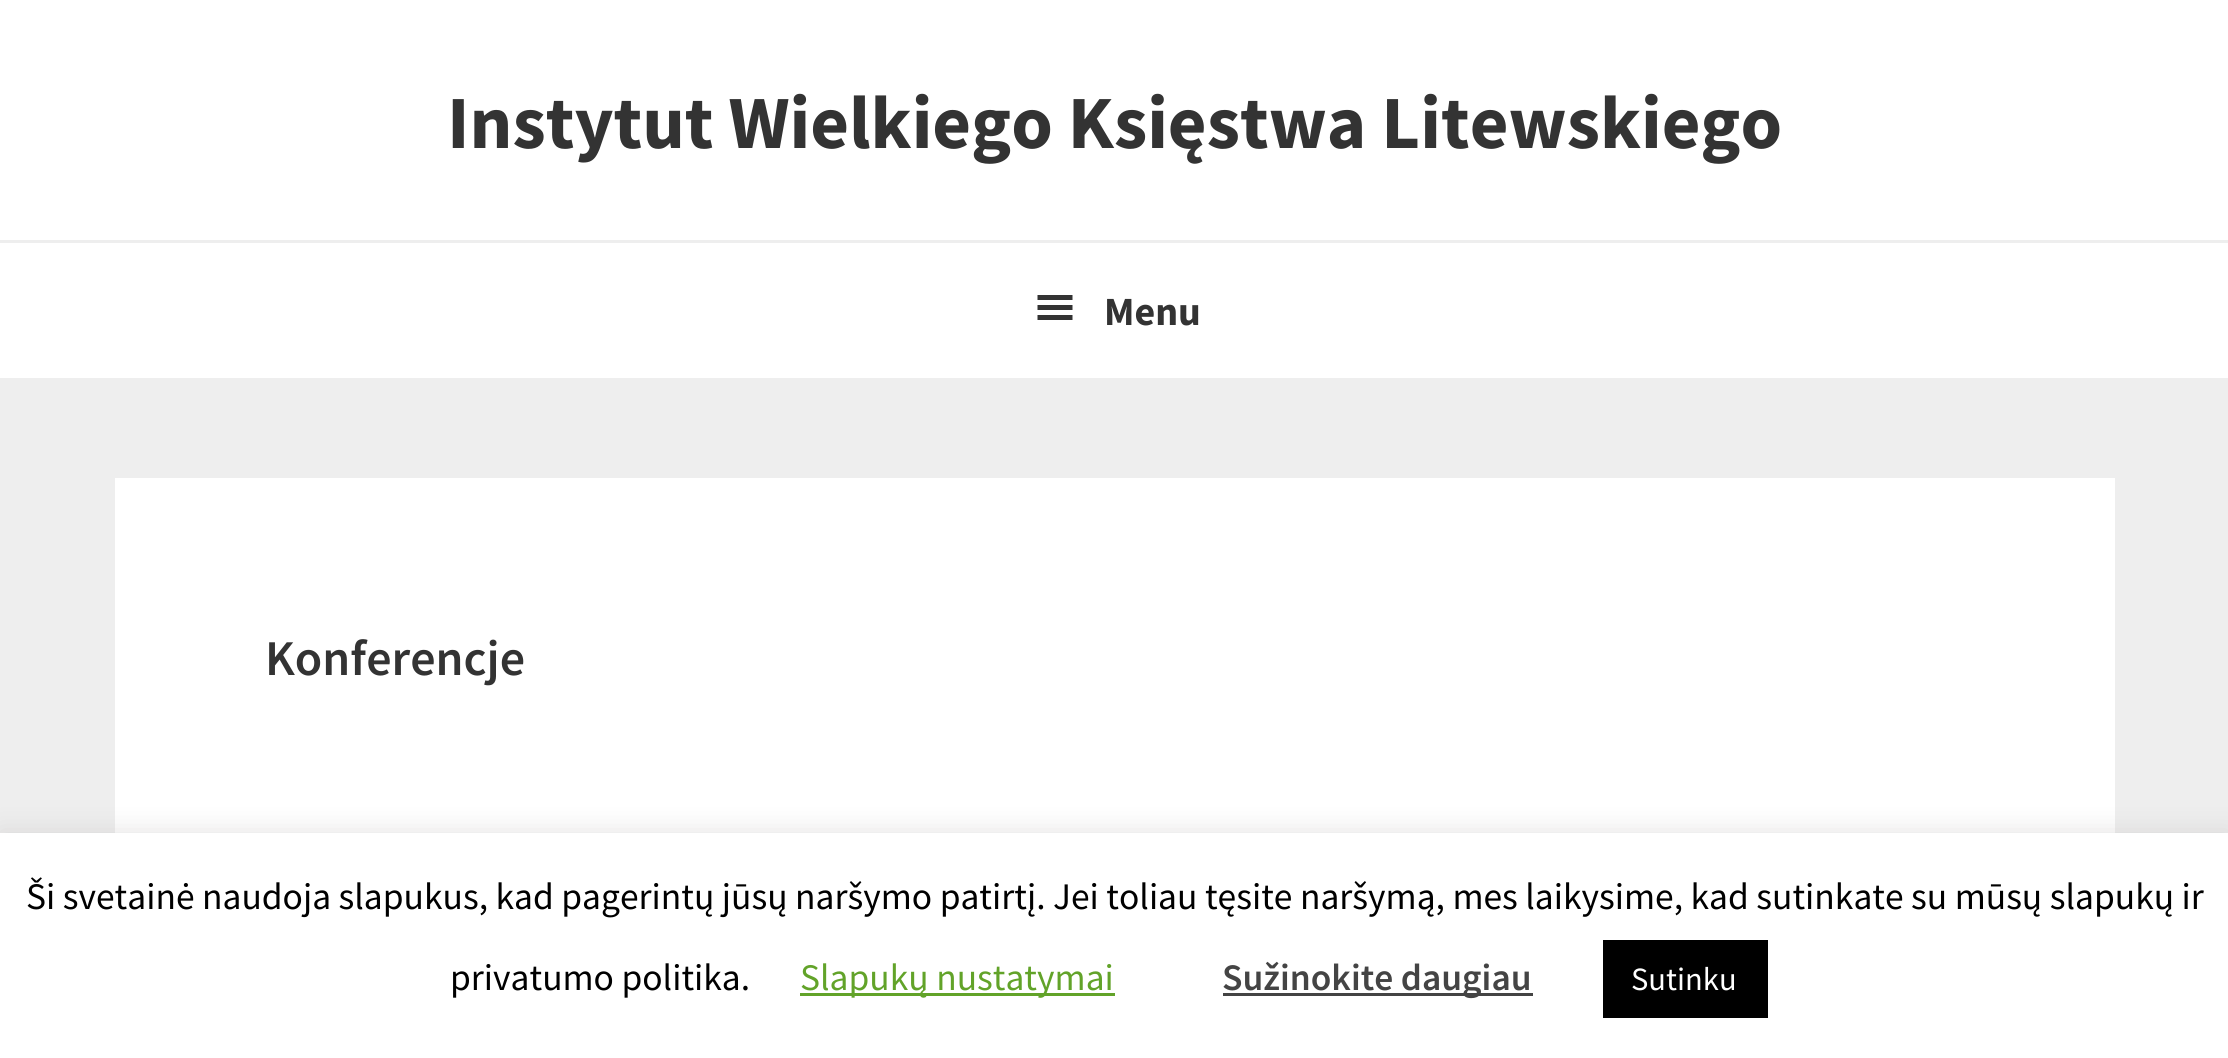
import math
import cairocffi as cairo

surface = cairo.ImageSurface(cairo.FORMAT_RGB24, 2228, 1058)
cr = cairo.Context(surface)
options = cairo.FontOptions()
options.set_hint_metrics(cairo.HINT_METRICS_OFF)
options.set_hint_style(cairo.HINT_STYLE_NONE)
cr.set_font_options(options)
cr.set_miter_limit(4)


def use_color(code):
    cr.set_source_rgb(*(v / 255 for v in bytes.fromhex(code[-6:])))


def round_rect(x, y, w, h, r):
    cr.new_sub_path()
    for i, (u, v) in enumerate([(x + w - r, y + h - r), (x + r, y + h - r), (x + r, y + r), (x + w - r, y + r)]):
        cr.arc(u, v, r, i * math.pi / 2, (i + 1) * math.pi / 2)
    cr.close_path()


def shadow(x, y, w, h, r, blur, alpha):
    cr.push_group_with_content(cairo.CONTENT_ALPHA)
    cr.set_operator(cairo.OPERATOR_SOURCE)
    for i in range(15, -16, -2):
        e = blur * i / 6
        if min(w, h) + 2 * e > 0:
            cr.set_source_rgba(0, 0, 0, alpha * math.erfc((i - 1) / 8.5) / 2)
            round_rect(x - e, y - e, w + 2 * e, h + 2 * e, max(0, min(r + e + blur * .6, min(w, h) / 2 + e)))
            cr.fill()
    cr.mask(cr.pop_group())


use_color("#eeeeee")
cr.paint()
use_color("#ffffff")
cr.rectangle(0, 0, 2228, 240)
cr.fill()
cr.select_font_face("Source Sans Pro", cairo.FONT_SLANT_NORMAL, cairo.FONT_WEIGHT_BOLD)
cr.set_font_size(75)
use_color("#333333")
cr.move_to(447, 148)
cr.show_text("Instytut Wielkiego Księstwa Litewskiego")
use_color("#ffffff")
cr.rectangle(0, 243, 2228, 135)
cr.fill()
use_color("#333333")
cr.new_path()
cr.move_to(1037.5, 320)
cr.line_to(1072.5, 320)
cr.line_to(1072.5, 315)
cr.line_to(1037.5, 315)
cr.close_path()
cr.move_to(1037.5, 295)
cr.line_to(1037.5, 300)
cr.line_to(1072.5, 300)
cr.line_to(1072.5, 295)
cr.close_path()
cr.move_to(1037.5, 310)
cr.line_to(1072.5, 310)
cr.line_to(1072.5, 305)
cr.line_to(1037.5, 305)
cr.close_path()
cr.fill()
cr.set_font_size(40)
cr.move_to(1104, 325)
cr.show_text("Menu")
use_color("#ffffff")
cr.rectangle(115, 478, 2000, 355)
cr.fill()
cr.select_font_face("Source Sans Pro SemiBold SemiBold")
cr.set_font_size(50)
use_color("#333333")
cr.move_to(265, 675)
cr.show_text("Konferencje")
use_color("#acabab")
shadow(0, 830, 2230, 228, 0, 12.5, 0.3)
use_color("#ffffff")
cr.rectangle(0, 833, 2228, 225)
cr.fill()
cr.select_font_face("Source Sans Pro")
cr.set_font_size(37.5)
use_color("#000000")
cr.move_to(26, 909)
cr.show_text("Ši svetainė naudoja slapukus, kad pagerintų jūsų naršymo patirtį. Jei toliau tęsite naršymą, mes laikysime, kad sutinkate su mūsų slapukų ir")
cr.move_to(450, 990)
cr.show_text("privatumo politika.")
use_color("#62a329")
cr.rectangle(800, 993, 315, 3)
cr.fill()
cr.move_to(800, 990)
cr.show_text("Slapukų nustatymai")
use_color("#444444")
cr.rectangle(1223, 993, 310, 3)
cr.fill()
cr.select_font_face("Source Sans Pro SemiBold SemiBold")
cr.move_to(1222, 990)
cr.show_text("Sužinokite daugiau")
use_color("#000000")
cr.rectangle(1603, 940, 165, 78)
cr.fill()
cr.select_font_face("Source Sans Pro")
cr.set_font_size(32.5)
use_color("#ffffff")
cr.move_to(1631, 990)
cr.show_text("Sutinku")
surface.write_to_png("result.png")
